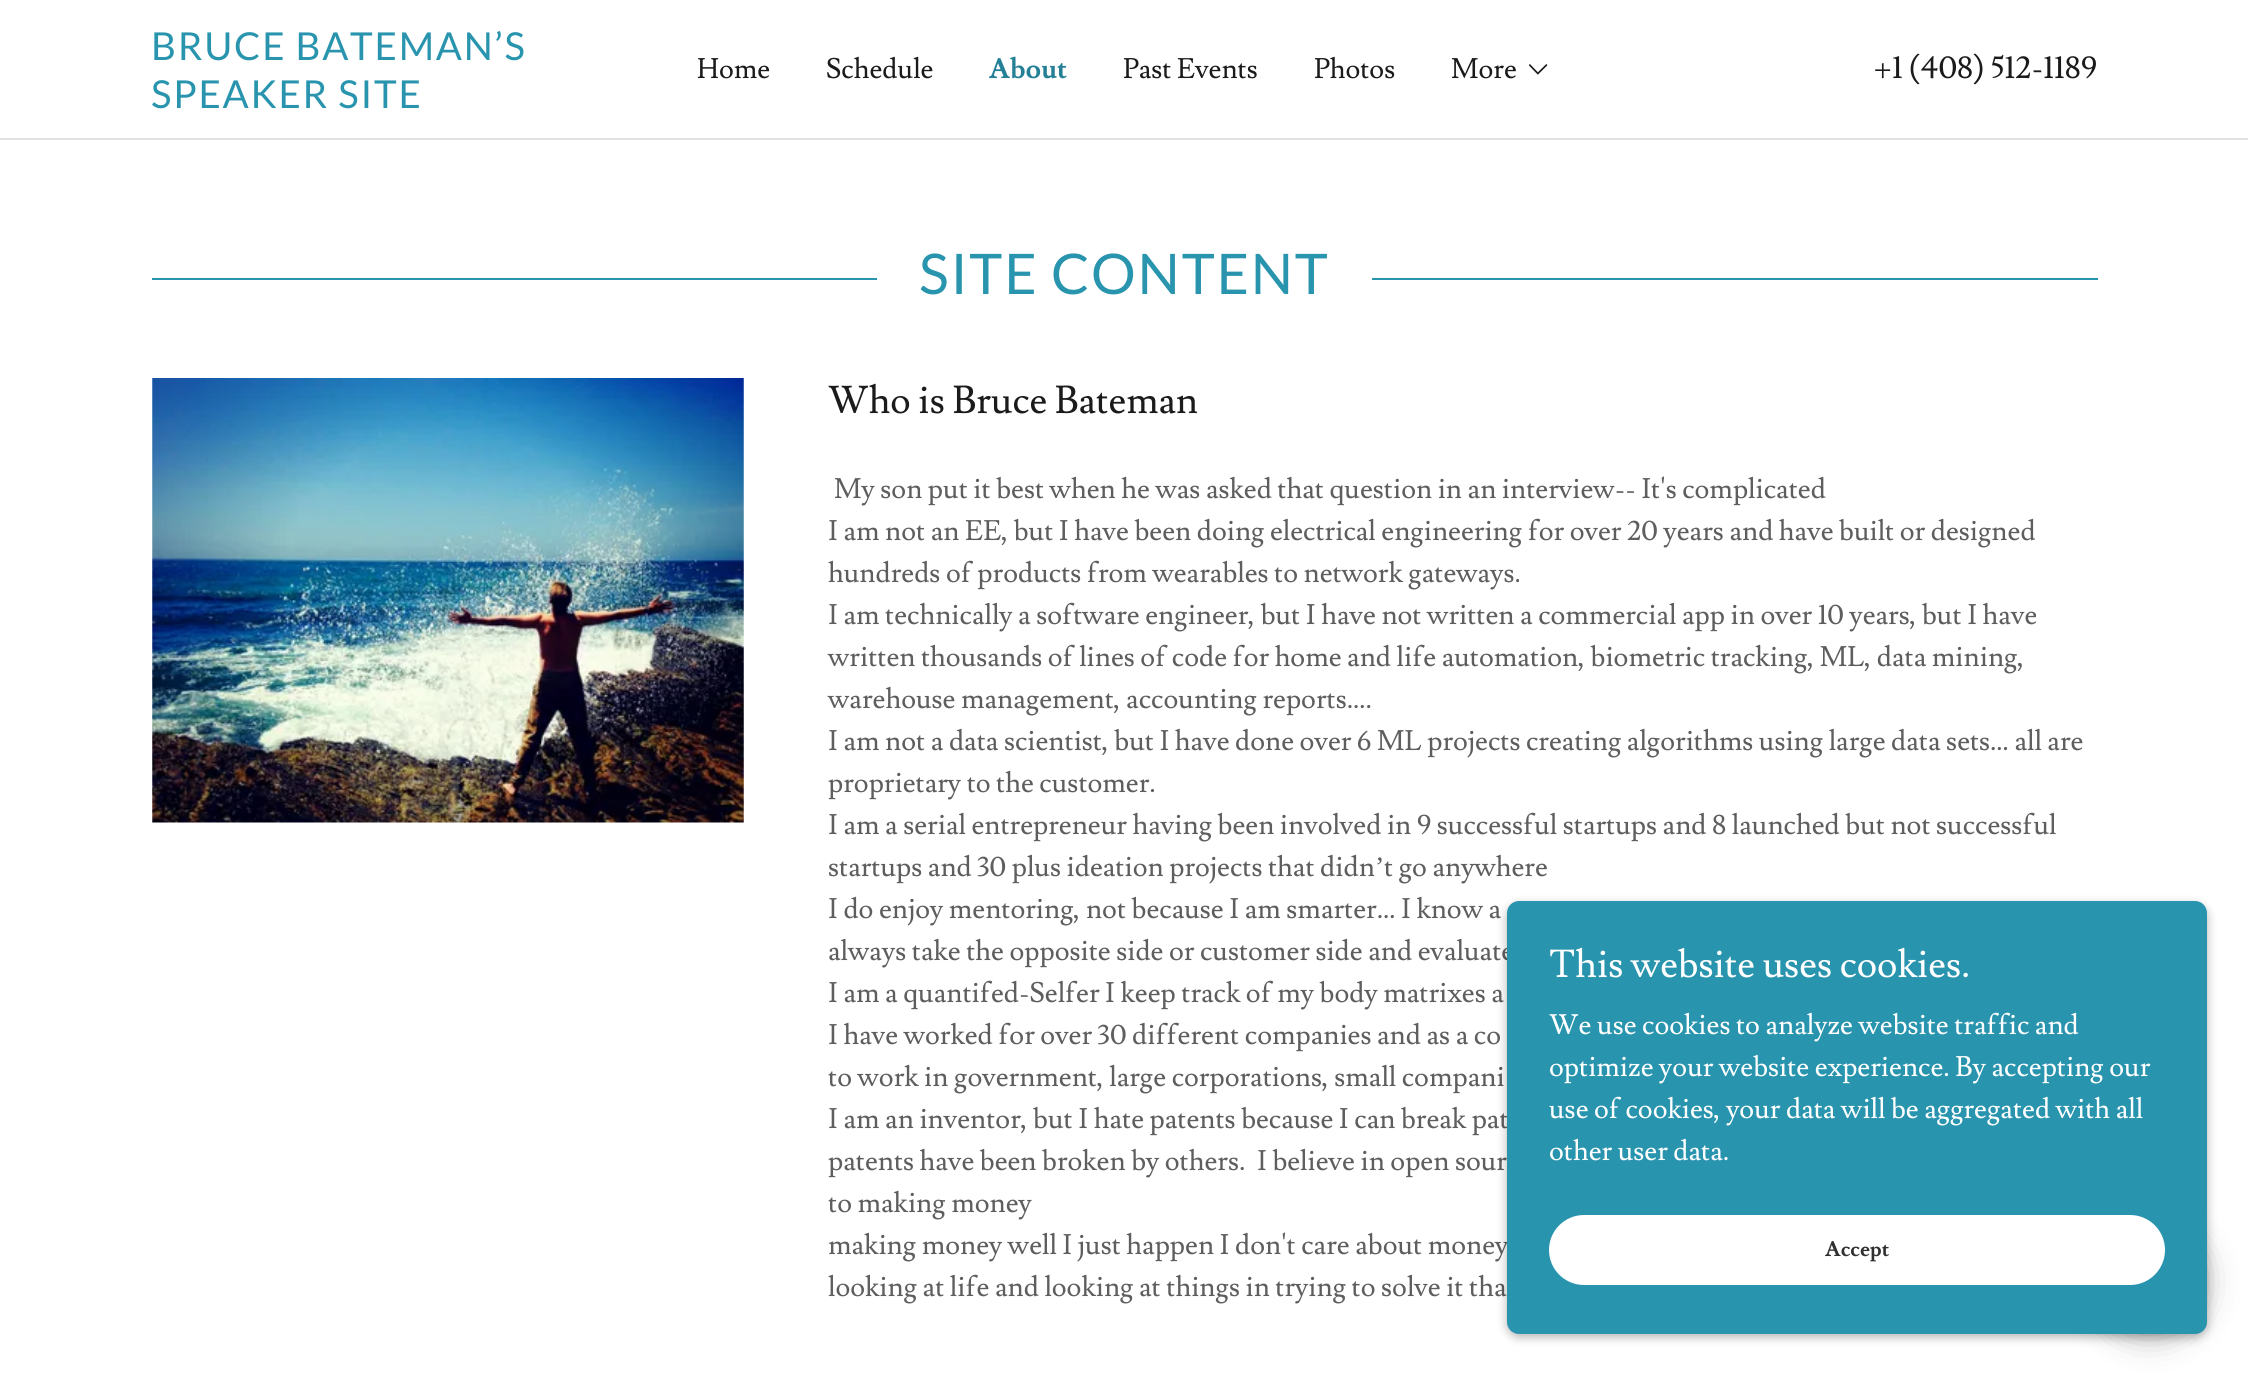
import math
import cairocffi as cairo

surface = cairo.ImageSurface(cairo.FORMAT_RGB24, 2248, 1375)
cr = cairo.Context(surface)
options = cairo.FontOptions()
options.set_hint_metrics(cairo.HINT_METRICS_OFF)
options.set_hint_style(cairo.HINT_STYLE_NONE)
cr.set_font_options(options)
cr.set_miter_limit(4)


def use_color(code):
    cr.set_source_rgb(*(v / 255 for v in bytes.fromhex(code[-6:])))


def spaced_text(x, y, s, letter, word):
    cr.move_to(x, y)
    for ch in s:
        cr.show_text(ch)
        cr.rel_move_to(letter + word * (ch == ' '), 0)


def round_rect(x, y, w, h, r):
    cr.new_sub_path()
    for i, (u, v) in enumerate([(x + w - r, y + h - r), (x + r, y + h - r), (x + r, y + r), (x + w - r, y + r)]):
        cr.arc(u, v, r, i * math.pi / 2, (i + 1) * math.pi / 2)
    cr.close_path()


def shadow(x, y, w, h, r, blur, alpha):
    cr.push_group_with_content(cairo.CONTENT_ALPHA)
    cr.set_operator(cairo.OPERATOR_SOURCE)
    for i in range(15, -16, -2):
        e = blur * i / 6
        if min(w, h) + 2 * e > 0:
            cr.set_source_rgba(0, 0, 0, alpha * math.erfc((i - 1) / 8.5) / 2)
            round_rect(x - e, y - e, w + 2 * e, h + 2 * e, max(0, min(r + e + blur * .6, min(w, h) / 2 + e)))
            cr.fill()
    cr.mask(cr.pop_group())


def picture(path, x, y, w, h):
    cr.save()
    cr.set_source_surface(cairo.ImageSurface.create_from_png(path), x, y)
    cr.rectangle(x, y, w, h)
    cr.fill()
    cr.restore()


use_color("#ffffff")
cr.paint()
cr.select_font_face("Lato")
cr.set_font_size(38.5)
use_color("#2994ae")
spaced_text(151, 60, "BRUCE BATEMAN’S", 1.75, 0)
spaced_text(151, 108, "SPEAKER SITE", 1.75, 0)
cr.select_font_face("Lusitana")
cr.set_font_size(28)
use_color("#1b1b1b")
cr.move_to(697, 78)
cr.show_text("Home")
cr.move_to(826, 78)
cr.show_text("Schedule")
cr.select_font_face("Lusitana", cairo.FONT_SLANT_NORMAL, cairo.FONT_WEIGHT_BOLD)
use_color("#248096")
cr.move_to(989, 78)
cr.show_text("About")
cr.select_font_face("Lusitana")
use_color("#1b1b1b")
cr.move_to(1123, 78)
cr.show_text("Past Events")
cr.move_to(1314, 78)
cr.show_text("Photos")
cr.move_to(1451, 78)
cr.show_text("More")
picture("img1.png", 1529, 64, 19, 11)
cr.set_font_size(31.5)
cr.move_to(1874, 78)
cr.show_text("+1 (408) 512-1189")
use_color("#e2e2e2")
cr.rectangle(0, 138, 2248, 2)
cr.fill()
use_color("#2994ae")
cr.rectangle(152, 278, 725, 2)
cr.fill()
cr.select_font_face("Lato")
cr.set_font_size(56)
spaced_text(919, 294, "SITE CONTENT", 1.75, 0)
cr.rectangle(1372, 278, 726, 2)
cr.fill()
picture("img2.png", 152, 378, 592, 445)
cr.select_font_face("Lusitana")
cr.set_font_size(38.5)
use_color("#1b1b1b")
cr.move_to(828, 413)
cr.show_text("Who is Bruce Bateman")
cr.set_font_size(28)
use_color("#5e5e5e")
cr.move_to(834, 498)
cr.show_text("My son put it best when he was asked that question in an interview-- It's complicated")
cr.move_to(828, 540)
cr.show_text("I am not an EE, but I have been doing electrical engineering for over 20 years and have built or designed")
cr.move_to(828, 582)
cr.show_text("hundreds of products from wearables to network gateways.")
cr.move_to(828, 624)
cr.show_text("I am technically a software engineer, but I have not written a commercial app in over 10 years, but I have")
cr.move_to(828, 666)
cr.show_text("written thousands of lines of code for home and life automation, biometric tracking, ML, data mining,")
cr.move_to(828, 708)
cr.show_text("warehouse management, accounting reports….")
cr.move_to(828, 750)
cr.show_text("I am not a data scientist, but I have done over 6 ML projects creating algorithms using large data sets… all are")
cr.move_to(828, 792)
cr.show_text("proprietary to the customer.")
cr.move_to(828, 834)
cr.show_text("I am a serial entrepreneur having been involved in 9 successful startups and 8 launched but not successful")
cr.move_to(828, 876)
cr.show_text("startups and 30 plus ideation projects that didn")
cr.select_font_face("Liberation Serif")
cr.move_to(1375, 876)
cr.show_text("’")
cr.select_font_face("Lusitana")
cr.move_to(1384, 876)
cr.show_text("t go anywhere")
cr.move_to(828, 918)
cr.show_text("I do enjoy mentoring, not because I am smarter… I know a")
cr.move_to(828, 960)
cr.show_text("always take the opposite side or customer side and evaluate")
cr.move_to(828, 1002)
cr.show_text("I am a quantifed-Selfer I keep track of my body matrixes a")
cr.move_to(828, 1044)
cr.show_text("I have worked for over 30 different companies and as a co")
cr.move_to(828, 1086)
cr.show_text("to work in government, large corporations, small compani")
cr.move_to(828, 1128)
cr.show_text("I am an inventor, but I hate patents because I can break pat")
cr.move_to(828, 1170)
cr.show_text("patents have been broken by others.")
cr.move_to(1257, 1170)
cr.show_text("I believe in open sour")
cr.move_to(828, 1212)
cr.show_text("to making money")
cr.move_to(828, 1254)
cr.show_text("making money well I just happen I don't care about money")
cr.move_to(828, 1296)
cr.show_text("looking at life and looking at things in trying to solve it tha")
use_color("#000000")
shadow(1507, 905, 700, 432, 12, 5, 0.3)
shadow(2093, 1225, 114, 114, 57, 16, 0.25)
use_color("#2994ae")
round_rect(1507, 901, 700, 433, 12)
cr.fill()
cr.set_font_size(38.5)
use_color("#ffffff")
cr.move_to(1549, 977)
cr.show_text("This website uses cookies.")
cr.set_font_size(28)
cr.move_to(1549, 1034)
cr.show_text("We use cookies to analyze website traffic and")
cr.move_to(1549, 1076)
cr.show_text("optimize your website experience. By accepting our")
cr.move_to(1549, 1118)
cr.show_text("use of cookies, your data will be aggregated with all")
cr.move_to(1549, 1160)
cr.show_text("other user data.")
round_rect(1549, 1215, 616, 70, 35)
cr.fill()
cr.select_font_face("Lusitana", cairo.FONT_SLANT_NORMAL, cairo.FONT_WEIGHT_BOLD)
cr.set_font_size(21)
use_color("#303030")
cr.move_to(1825, 1256)
cr.show_text("Accept")
surface.write_to_png("result.png")
